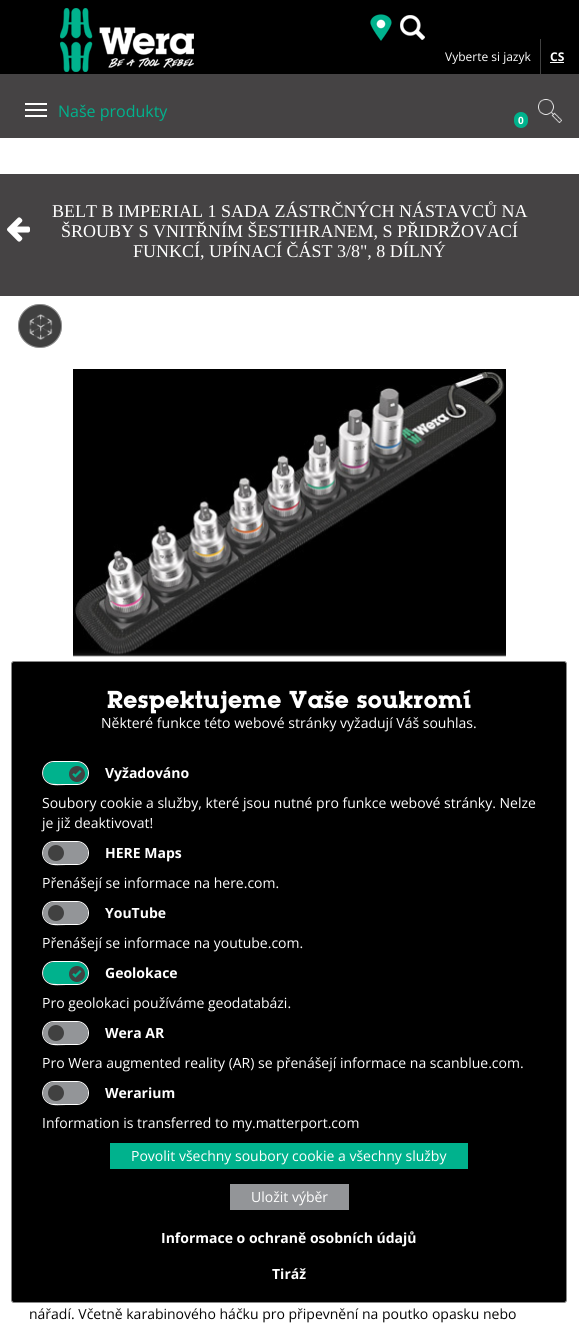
import math
import cairocffi as cairo

surface = cairo.ImageSurface(cairo.FORMAT_RGB24, 579, 1328)
cr = cairo.Context(surface)
options = cairo.FontOptions()
options.set_hint_metrics(cairo.HINT_METRICS_OFF)
options.set_hint_style(cairo.HINT_STYLE_NONE)
cr.set_font_options(options)
cr.set_miter_limit(4)


def use_color(code):
    cr.set_source_rgb(*(v / 255 for v in bytes.fromhex(code[-6:])))


def round_rect(x, y, w, h, r):
    cr.new_sub_path()
    for i, (u, v) in enumerate([(x + w - r, y + h - r), (x + r, y + h - r), (x + r, y + r), (x + w - r, y + r)]):
        cr.arc(u, v, r, i * math.pi / 2, (i + 1) * math.pi / 2)
    cr.close_path()


def shadow(x, y, w, h, r, blur, alpha):
    cr.push_group_with_content(cairo.CONTENT_ALPHA)
    cr.set_operator(cairo.OPERATOR_SOURCE)
    for i in range(15, -16, -2):
        e = blur * i / 6
        if min(w, h) + 2 * e > 0:
            cr.set_source_rgba(0, 0, 0, alpha * math.erfc((i - 1) / 8.5) / 2)
            round_rect(x - e, y - e, w + 2 * e, h + 2 * e, max(0, min(r + e + blur * .6, min(w, h) / 2 + e)))
            cr.fill()
    cr.mask(cr.pop_group())


def picture(path, x, y, w, h):
    cr.save()
    cr.set_source_surface(cairo.ImageSurface.create_from_png(path), x, y)
    cr.rectangle(x, y, w, h)
    cr.fill()
    cr.restore()


use_color("#000000")
cr.paint()
picture("img1.png", 60, 8, 134, 64)
picture("img2.png", 370, 14, 22, 27)
picture("img3.png", 400, 15, 25, 25)
use_color("#414141")
cr.rectangle(540, 39, 1, 35)
cr.fill()
cr.select_font_face("Open Sans")
cr.set_font_size(12)
use_color("#ffffff")
cr.move_to(445, 61)
cr.show_text("Vyberte si jazyk")
cr.select_font_face("Open Sans", cairo.FONT_SLANT_NORMAL, cairo.FONT_WEIGHT_BOLD)
cr.move_to(550, 61)
cr.show_text("CS")
cr.rectangle(550, 62, 14, 1)
cr.fill()
use_color("#454344")
cr.rectangle(0, 74, 579, 64)
cr.fill()
use_color("#ffffff")
cr.rectangle(25, 103, 22, 2)
cr.fill()
cr.rectangle(25, 109, 22, 2)
cr.fill()
cr.rectangle(25, 115, 22, 2)
cr.fill()
cr.select_font_face("Open Sans")
cr.set_font_size(16)
use_color("#00b28d")
cr.move_to(58, 117)
cr.show_text("Naše produkty")
round_rect(514, 112, 14, 16, 7)
cr.fill()
cr.select_font_face("Open Sans", cairo.FONT_SLANT_NORMAL, cairo.FONT_WEIGHT_BOLD)
cr.set_font_size(10)
use_color("#ffffff")
cr.move_to(518, 124)
cr.show_text("0")
picture("img4.png", 538, 99, 24, 24)
cr.rectangle(0, 138, 579, 1190)
cr.fill()
use_color("#454344")
cr.rectangle(0, 174, 579, 122)
cr.fill()
picture("img5.png", 7, 217, 23, 25)
cr.select_font_face("Liberation Serif")
cr.set_font_size(18)
use_color("#ffffff")
cr.move_to(52, 217)
cr.show_text("BELT B IMPERIAL 1 SADA ZÁSTRČNÝCH NÁSTAVCŮ NA")
cr.move_to(61, 237)
cr.show_text("ŠROUBY S VNITŘNÍM ŠESTIHRANEM, S PŘIDRŽOVACÍ")
cr.move_to(133, 257)
cr.show_text("FUNKCÍ, UPÍNACÍ ČÁST 3/8\", 8 DÍLNÝ")
use_color("#404040")
cr.new_path()
cr.arc(40, 326, 22, 0, 2 * math.pi)
cr.fill()
cr.arc(40, 326, 21.5, 0, 2 * math.pi)
cr.set_source_rgba(1, 1, 1, 0.4)
cr.set_line_width(1)
cr.stroke()
picture("img6.png", 29, 314, 24, 26)
picture("img7.png", 73, 369, 433, 288)
cr.select_font_face("Open Sans")
cr.set_font_size(14)
use_color("#000000")
cr.move_to(29, 1319)
cr.show_text("nářadí. Včetně karabinového háčku pro připevnění na poutko opasku nebo")
use_color("#ffffff")
shadow(12, 662, 556, 642, 3, 5, 1)
use_color("#000000")
round_rect(11.5, 661.5, 555, 641, 2.5)
cr.fill_preserve()
use_color("#888888")
cr.stroke()
cr.select_font_face("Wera", cairo.FONT_SLANT_NORMAL, cairo.FONT_WEIGHT_BOLD)
cr.set_font_size(24)
use_color("#ffffff")
cr.move_to(107, 708)
cr.show_text("Respektujeme Vaše soukromí")
cr.select_font_face("Open Sans")
cr.set_font_size(14)
cr.move_to(101, 728)
cr.show_text("Některé funkce této webové stránky vyžadují Váš souhlas.")
use_color("#00b28d")
cr.new_path()
cr.move_to(54, 762)
cr.line_to(66, 762)
cr.line_to(66, 784)
cr.line_to(54, 784)
cr.curve_to(48, 784, 43, 779, 43, 773)
cr.curve_to(43, 767, 48, 762, 54, 762)
cr.close_path()
cr.fill()
use_color("#ffffff")
cr.set_fill_rule(cairo.FILL_RULE_EVEN_ODD)
cr.new_path()
cr.move_to(54, 761)
cr.line_to(66, 761)
cr.line_to(66, 785)
cr.curve_to(61.5, 785, 53.5, 786, 49.5, 784)
cr.curve_to(37.5, 779, 41, 761, 54, 761)
cr.close_path()
cr.move_to(54, 762)
cr.line_to(66, 762)
cr.line_to(66, 784)
cr.curve_to(61.5, 784, 53.5, 784.5, 49.5, 783)
cr.curve_to(39, 778.5, 42, 762, 54, 762)
cr.close_path()
cr.fill()
use_color("#00b28d")
cr.new_path()
cr.move_to(65, 762)
cr.line_to(77, 762)
cr.curve_to(83, 762, 88, 767, 88, 773)
cr.curve_to(88, 779, 83, 784, 77, 784)
cr.line_to(65, 784)
cr.close_path()
cr.fill()
use_color("#ffffff")
cr.new_path()
cr.move_to(65, 761)
cr.line_to(77, 761)
cr.curve_to(83.5, 761, 89, 766.5, 89, 773)
cr.curve_to(89, 779.5, 83.5, 785, 77, 785)
cr.line_to(65, 785)
cr.close_path()
cr.move_to(65, 762)
cr.line_to(77, 762)
cr.curve_to(83, 762, 88, 767, 88, 773)
cr.curve_to(88, 779, 83, 784, 77, 784)
cr.line_to(65, 784)
cr.close_path()
cr.fill()
use_color("#414141")
cr.arc(77, 774, 8, 0, 2 * math.pi)
cr.fill()
picture("img8.png", 72, 770, 10, 8)
cr.select_font_face("Open Sans", cairo.FONT_SLANT_NORMAL, cairo.FONT_WEIGHT_BOLD)
use_color("#ffffff")
cr.move_to(105, 778)
cr.show_text("Vyžadováno")
cr.select_font_face("Open Sans")
cr.move_to(42, 808)
cr.show_text("Soubory cookie a služby, které jsou nutné pro funkce webové stránky. Nelze")
cr.move_to(42, 828)
cr.show_text("je již deaktivovat!")
use_color("#939598")
cr.new_path()
cr.move_to(65, 842)
cr.line_to(77, 842)
cr.curve_to(83, 842, 88, 847, 88, 853)
cr.curve_to(88, 859, 83, 864, 77, 864)
cr.line_to(65, 864)
cr.close_path()
cr.fill()
use_color("#ffffff")
cr.new_path()
cr.move_to(65, 841)
cr.line_to(77, 841)
cr.curve_to(83.5, 841, 89, 846.5, 89, 853)
cr.curve_to(89, 859.5, 83.5, 865, 77, 865)
cr.line_to(65, 865)
cr.close_path()
cr.move_to(65, 842)
cr.line_to(77, 842)
cr.curve_to(83, 842, 88, 847, 88, 853)
cr.curve_to(88, 859, 83, 864, 77, 864)
cr.line_to(65, 864)
cr.close_path()
cr.fill()
use_color("#939598")
cr.new_path()
cr.move_to(54, 842)
cr.line_to(66, 842)
cr.line_to(66, 864)
cr.line_to(54, 864)
cr.curve_to(48, 864, 43, 859, 43, 853)
cr.curve_to(43, 847, 48, 842, 54, 842)
cr.close_path()
cr.fill()
use_color("#ffffff")
cr.new_path()
cr.move_to(54, 841)
cr.line_to(66, 841)
cr.line_to(66, 865)
cr.curve_to(61.5, 865, 53.5, 866, 49.5, 864)
cr.curve_to(37.5, 859, 41, 841, 54, 841)
cr.close_path()
cr.move_to(54, 842)
cr.line_to(66, 842)
cr.line_to(66, 864)
cr.curve_to(61.5, 864, 53.5, 864.5, 49.5, 863)
cr.curve_to(39, 858.5, 42, 842, 54, 842)
cr.close_path()
cr.fill()
use_color("#414141")
cr.arc(56, 853, 8, 0, 2 * math.pi)
cr.fill()
cr.select_font_face("Open Sans", cairo.FONT_SLANT_NORMAL, cairo.FONT_WEIGHT_BOLD)
use_color("#ffffff")
cr.move_to(105, 858)
cr.show_text("HERE Maps")
cr.select_font_face("Open Sans")
cr.move_to(42, 888)
cr.show_text("Přenášejí se informace na here.com.")
use_color("#939598")
cr.new_path()
cr.move_to(65, 902)
cr.line_to(77, 902)
cr.curve_to(83, 902, 88, 907, 88, 913)
cr.curve_to(88, 919, 83, 924, 77, 924)
cr.line_to(65, 924)
cr.close_path()
cr.fill()
use_color("#ffffff")
cr.new_path()
cr.move_to(65, 901)
cr.line_to(77, 901)
cr.curve_to(83.5, 901, 89, 906.5, 89, 913)
cr.curve_to(89, 919.5, 83.5, 925, 77, 925)
cr.line_to(65, 925)
cr.close_path()
cr.move_to(65, 902)
cr.line_to(77, 902)
cr.curve_to(83, 902, 88, 907, 88, 913)
cr.curve_to(88, 919, 83, 924, 77, 924)
cr.line_to(65, 924)
cr.close_path()
cr.fill()
use_color("#939598")
cr.new_path()
cr.move_to(54, 902)
cr.line_to(66, 902)
cr.line_to(66, 924)
cr.line_to(54, 924)
cr.curve_to(48, 924, 43, 919, 43, 913)
cr.curve_to(43, 907, 48, 902, 54, 902)
cr.close_path()
cr.fill()
use_color("#ffffff")
cr.new_path()
cr.move_to(54, 901)
cr.line_to(66, 901)
cr.line_to(66, 925)
cr.curve_to(61.5, 925, 53.5, 926, 49.5, 924)
cr.curve_to(37.5, 919, 41, 901, 54, 901)
cr.close_path()
cr.move_to(54, 902)
cr.line_to(66, 902)
cr.line_to(66, 924)
cr.curve_to(61.5, 924, 53.5, 924.5, 49.5, 923)
cr.curve_to(39, 918.5, 42, 902, 54, 902)
cr.close_path()
cr.fill()
use_color("#414141")
cr.arc(56, 913, 8, 0, 2 * math.pi)
cr.fill()
cr.select_font_face("Open Sans", cairo.FONT_SLANT_NORMAL, cairo.FONT_WEIGHT_BOLD)
use_color("#ffffff")
cr.move_to(105, 918)
cr.show_text("YouTube")
cr.select_font_face("Open Sans")
cr.move_to(42, 948)
cr.show_text("Přenášejí se informace na youtube.com.")
use_color("#00b28d")
cr.new_path()
cr.move_to(54, 962)
cr.line_to(66, 962)
cr.line_to(66, 984)
cr.line_to(54, 984)
cr.curve_to(48, 984, 43, 979, 43, 973)
cr.curve_to(43, 967, 48, 962, 54, 962)
cr.close_path()
cr.fill()
use_color("#ffffff")
cr.new_path()
cr.move_to(54, 961)
cr.line_to(66, 961)
cr.line_to(66, 985)
cr.curve_to(61.5, 985, 53.5, 986, 49.5, 984)
cr.curve_to(37.5, 979, 41, 961, 54, 961)
cr.close_path()
cr.move_to(54, 962)
cr.line_to(66, 962)
cr.line_to(66, 984)
cr.curve_to(61.5, 984, 53.5, 984.5, 49.5, 983)
cr.curve_to(39, 978.5, 42, 962, 54, 962)
cr.close_path()
cr.fill()
use_color("#00b28d")
cr.new_path()
cr.move_to(65, 962)
cr.line_to(77, 962)
cr.curve_to(83, 962, 88, 967, 88, 973)
cr.curve_to(88, 979, 83, 984, 77, 984)
cr.line_to(65, 984)
cr.close_path()
cr.fill()
use_color("#ffffff")
cr.new_path()
cr.move_to(65, 961)
cr.line_to(77, 961)
cr.curve_to(83.5, 961, 89, 966.5, 89, 973)
cr.curve_to(89, 979.5, 83.5, 985, 77, 985)
cr.line_to(65, 985)
cr.close_path()
cr.move_to(65, 962)
cr.line_to(77, 962)
cr.curve_to(83, 962, 88, 967, 88, 973)
cr.curve_to(88, 979, 83, 984, 77, 984)
cr.line_to(65, 984)
cr.close_path()
cr.fill()
use_color("#414141")
cr.arc(77, 974, 8, 0, 2 * math.pi)
cr.fill()
picture("img8.png", 72, 970, 10, 8)
cr.select_font_face("Open Sans", cairo.FONT_SLANT_NORMAL, cairo.FONT_WEIGHT_BOLD)
use_color("#ffffff")
cr.move_to(105, 978)
cr.show_text("Geolokace")
cr.select_font_face("Open Sans")
cr.move_to(42, 1008)
cr.show_text("Pro geolokaci používáme geodatabázi.")
use_color("#939598")
cr.new_path()
cr.move_to(65, 1022)
cr.line_to(77, 1022)
cr.curve_to(83, 1022, 88, 1027, 88, 1033)
cr.curve_to(88, 1039, 83, 1044, 77, 1044)
cr.line_to(65, 1044)
cr.close_path()
cr.fill()
use_color("#ffffff")
cr.new_path()
cr.move_to(65, 1021)
cr.line_to(77, 1021)
cr.curve_to(83.5, 1021, 89, 1026.5, 89, 1033)
cr.curve_to(89, 1039.5, 83.5, 1045, 77, 1045)
cr.line_to(65, 1045)
cr.close_path()
cr.move_to(65, 1022)
cr.line_to(77, 1022)
cr.curve_to(83, 1022, 88, 1027, 88, 1033)
cr.curve_to(88, 1039, 83, 1044, 77, 1044)
cr.line_to(65, 1044)
cr.close_path()
cr.fill()
use_color("#939598")
cr.new_path()
cr.move_to(54, 1022)
cr.line_to(66, 1022)
cr.line_to(66, 1044)
cr.line_to(54, 1044)
cr.curve_to(48, 1044, 43, 1039, 43, 1033)
cr.curve_to(43, 1027, 48, 1022, 54, 1022)
cr.close_path()
cr.fill()
use_color("#ffffff")
cr.new_path()
cr.move_to(54, 1021)
cr.line_to(66, 1021)
cr.line_to(66, 1045)
cr.curve_to(61.5, 1045, 53.5, 1046, 49.5, 1044)
cr.curve_to(37.5, 1039, 41, 1021, 54, 1021)
cr.close_path()
cr.move_to(54, 1022)
cr.line_to(66, 1022)
cr.line_to(66, 1044)
cr.curve_to(61.5, 1044, 53.5, 1044.5, 49.5, 1043)
cr.curve_to(39, 1038.5, 42, 1022, 54, 1022)
cr.close_path()
cr.fill()
use_color("#414141")
cr.arc(56, 1033, 8, 0, 2 * math.pi)
cr.fill()
cr.select_font_face("Open Sans", cairo.FONT_SLANT_NORMAL, cairo.FONT_WEIGHT_BOLD)
use_color("#ffffff")
cr.move_to(105, 1038)
cr.show_text("Wera AR")
cr.select_font_face("Open Sans")
cr.move_to(42, 1068)
cr.show_text("Pro Wera augmented reality (AR) se přenášejí informace na scanblue.com.")
use_color("#939598")
cr.new_path()
cr.move_to(65, 1082)
cr.line_to(77, 1082)
cr.curve_to(83, 1082, 88, 1087, 88, 1093)
cr.curve_to(88, 1099, 83, 1104, 77, 1104)
cr.line_to(65, 1104)
cr.close_path()
cr.fill()
use_color("#ffffff")
cr.new_path()
cr.move_to(65, 1081)
cr.line_to(77, 1081)
cr.curve_to(83.5, 1081, 89, 1086.5, 89, 1093)
cr.curve_to(89, 1099.5, 83.5, 1105, 77, 1105)
cr.line_to(65, 1105)
cr.close_path()
cr.move_to(65, 1082)
cr.line_to(77, 1082)
cr.curve_to(83, 1082, 88, 1087, 88, 1093)
cr.curve_to(88, 1099, 83, 1104, 77, 1104)
cr.line_to(65, 1104)
cr.close_path()
cr.fill()
use_color("#939598")
cr.new_path()
cr.move_to(54, 1082)
cr.line_to(66, 1082)
cr.line_to(66, 1104)
cr.line_to(54, 1104)
cr.curve_to(48, 1104, 43, 1099, 43, 1093)
cr.curve_to(43, 1087, 48, 1082, 54, 1082)
cr.close_path()
cr.fill()
use_color("#ffffff")
cr.new_path()
cr.move_to(54, 1081)
cr.line_to(66, 1081)
cr.line_to(66, 1105)
cr.curve_to(61.5, 1105, 53.5, 1106, 49.5, 1104)
cr.curve_to(37.5, 1099, 41, 1081, 54, 1081)
cr.close_path()
cr.move_to(54, 1082)
cr.line_to(66, 1082)
cr.line_to(66, 1104)
cr.curve_to(61.5, 1104, 53.5, 1104.5, 49.5, 1103)
cr.curve_to(39, 1098.5, 42, 1082, 54, 1082)
cr.close_path()
cr.fill()
use_color("#414141")
cr.arc(56, 1093, 8, 0, 2 * math.pi)
cr.fill()
cr.select_font_face("Open Sans", cairo.FONT_SLANT_NORMAL, cairo.FONT_WEIGHT_BOLD)
use_color("#ffffff")
cr.move_to(105, 1098)
cr.show_text("Werarium")
cr.select_font_face("Open Sans")
cr.move_to(42, 1128)
cr.show_text("Information is transferred to my.matterport.com")
use_color("#00b28d")
cr.rectangle(110, 1143, 358, 26)
cr.fill()
use_color("#ffffff")
cr.move_to(131, 1161)
cr.show_text("Povolit všechny soubory cookie a všechny služby")
use_color("#939598")
cr.rectangle(230, 1184, 119, 26)
cr.fill()
use_color("#ffffff")
cr.move_to(251, 1202)
cr.show_text("Uložit výběr")
cr.select_font_face("Open Sans", cairo.FONT_SLANT_NORMAL, cairo.FONT_WEIGHT_BOLD)
cr.move_to(161, 1243)
cr.show_text("Informace o ochraně osobních údajů")
cr.move_to(272, 1279)
cr.show_text("Tiráž")
surface.write_to_png("result.png")
